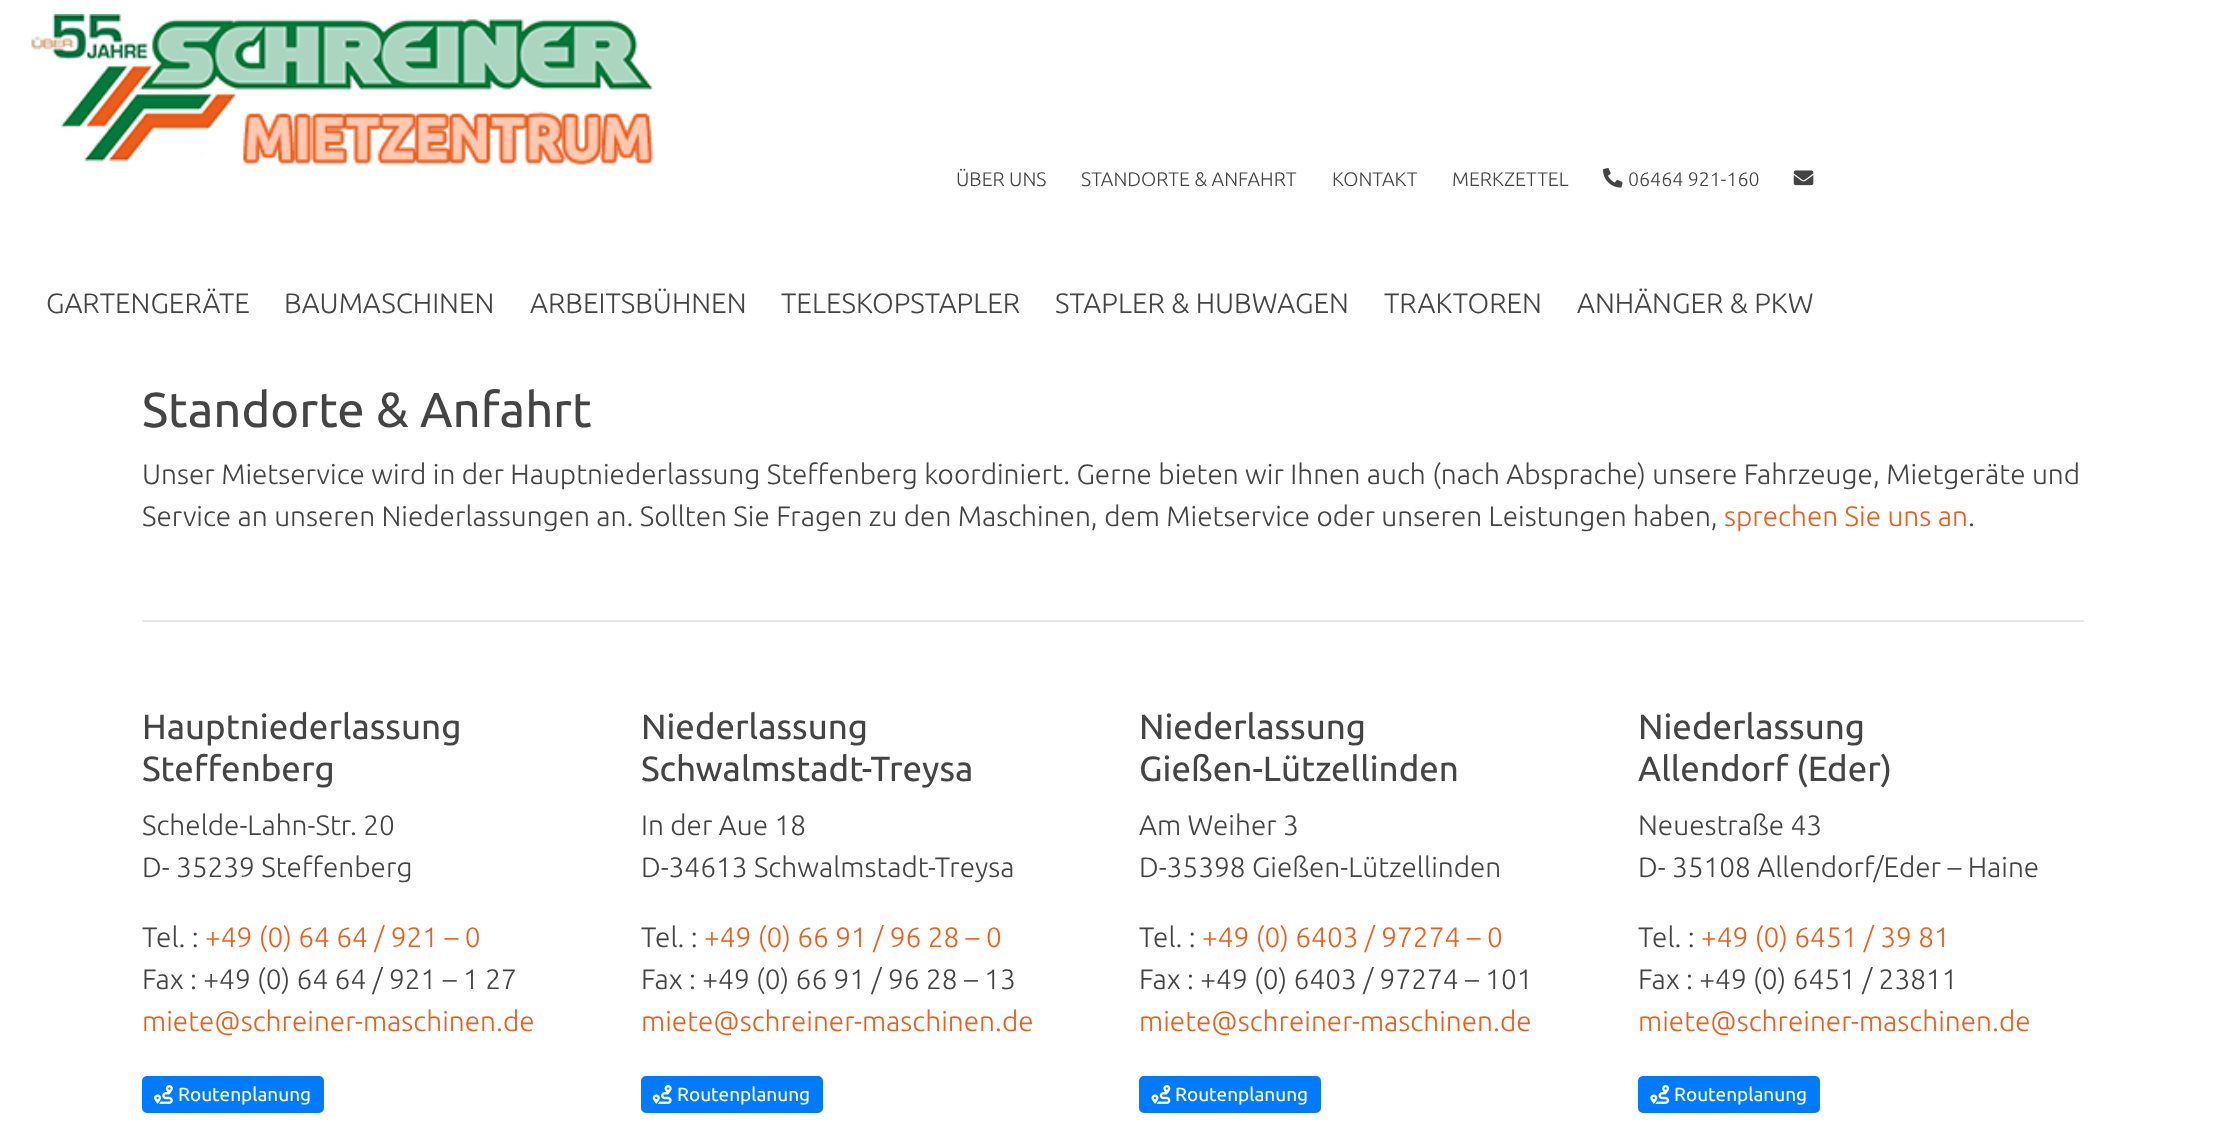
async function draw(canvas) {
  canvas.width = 2226;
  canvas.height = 1137;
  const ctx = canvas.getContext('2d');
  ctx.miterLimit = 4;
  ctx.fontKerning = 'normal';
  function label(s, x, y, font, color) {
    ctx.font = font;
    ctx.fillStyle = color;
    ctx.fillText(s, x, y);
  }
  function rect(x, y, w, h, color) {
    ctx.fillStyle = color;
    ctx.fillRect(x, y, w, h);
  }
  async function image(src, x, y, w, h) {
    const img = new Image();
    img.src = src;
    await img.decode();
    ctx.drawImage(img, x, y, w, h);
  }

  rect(0, 0, 2226, 1137, '#fff');
  await image('assets/img1.png', 31, 14, 625, 151);
  label('ÜBER UNS', 956, 186, '300 19.6px Ubuntu', '#444');
  label('STANDORTE & ANFAHRT', 1081, 186, '300 19.6px Ubuntu', '#444');
  label('KONTAKT', 1332, 186, '300 19.6px Ubuntu', '#444');
  label('MERKZETTEL', 1452, 186, '300 19.6px Ubuntu', '#444');
  await image('assets/img2.png', 1603, 168, 20, 20);
  label('06464 921-160', 1628, 186, '300 19.6px Ubuntu', '#444');
  await image('assets/img3.png', 1793, 170, 21, 16);
  label('GARTENGERÄTE', 46, 313, '300 28px Ubuntu', '#444');
  label('BAUMASCHINEN', 284, 313, '300 28px Ubuntu', '#444');
  label('ARBEITSBÜHNEN', 530, 313, '300 28px Ubuntu', '#444');
  label('TELESKOPSTAPLER', 781, 313, '300 28px Ubuntu', '#444');
  label('STAPLER & HUBWAGEN', 1055, 313, '300 28px Ubuntu', '#444');
  label('TRAKTOREN', 1384, 313, '300 28px Ubuntu', '#444');
  label('ANHÄNGER & PKW', 1577, 313, '300 28px Ubuntu', '#444');
  label('Standorte & Anfahrt', 142, 427, '49px Ubuntu', '#444');
  label('Unser Mietservice wird in der Hauptniederlassung Steffenberg koordiniert. Gerne bieten wir Ihnen auch (nach Absprache) unsere Fahrzeuge, Mietgeräte und', 142, 484, '300 28px Ubuntu', '#444');
  label('Service an unseren Niederlassungen an. Sollten Sie Fragen zu den Maschinen, dem Mietservice oder unseren Leistungen haben,', 142, 526, '300 28px Ubuntu', '#444');
  label('sprechen Sie uns an', 1724, 526, '300 28px Ubuntu', '#ec5e1c');
  label('.', 1968, 526, '300 28px Ubuntu', '#444');
  rect(142, 620, 1942, 2, '#e6e6e6');
  label('Hauptniederlassung', 142, 739, '35px Ubuntu', '#444');
  label('Steffenberg', 142, 781, '35px Ubuntu', '#444');
  label('Schelde-Lahn-Str. 20', 142, 835, '300 28px Ubuntu', '#444');
  label('D- 35239 Steffenberg', 142, 877, '300 28px Ubuntu', '#444');
  label('Tel. :', 142, 947, '300 28px Ubuntu', '#444');
  label('+49 (0) 64 64 / 921 – 0', 205, 947, '300 28px Ubuntu', '#ec5e1c');
  label('Fax : +49 (0) 64 64 / 921 – 1 27', 142, 989, '300 28px Ubuntu', '#444');
  label('miete@schreiner-maschinen.de', 142, 1031, '300 28px Ubuntu', '#ec5e1c');
  ctx.fillStyle = '#007bff';
  ctx.beginPath();
  ctx.roundRect(143, 1077, 180, 35, 4);
  ctx.fill();
  ctx.strokeStyle = '#007bff';
  ctx.lineWidth = 2;
  ctx.stroke();
  await image('assets/img4.png', 154, 1085, 19, 19);
  label('Routenplanung', 178, 1101, '19px Ubuntu', '#fff');
  label('Niederlassung', 641, 739, '35px Ubuntu', '#444');
  label('Schwalmstadt-Treysa', 641, 781, '35px Ubuntu', '#444');
  label('In der Aue 18', 641, 835, '300 28px Ubuntu', '#444');
  label('D-34613 Schwalmstadt-Treysa', 641, 877, '300 28px Ubuntu', '#444');
  label('Tel. :', 641, 947, '300 28px Ubuntu', '#444');
  label('+49 (0) 66 91 / 96 28 – 0', 704, 947, '300 28px Ubuntu', '#ec5e1c');
  label('Fax : +49 (0) 66 91 / 96 28 – 13', 641, 989, '300 28px Ubuntu', '#444');
  label('miete@schreiner-maschinen.de', 641, 1031, '300 28px Ubuntu', '#ec5e1c');
  ctx.fillStyle = '#007bff';
  ctx.beginPath();
  ctx.roundRect(642, 1077, 180, 35, 4);
  ctx.fill();
  ctx.stroke();
  await image('assets/img5.png', 652, 1085, 20, 19);
  label('Routenplanung', 677, 1101, '19px Ubuntu', '#fff');
  label('Niederlassung', 1139, 739, '35px Ubuntu', '#444');
  label('Gießen-Lützellinden', 1139, 781, '35px Ubuntu', '#444');
  label('Am Weiher 3', 1139, 835, '300 28px Ubuntu', '#444');
  label('D-35398 Gießen-Lützellinden', 1139, 877, '300 28px Ubuntu', '#444');
  label('Tel. :', 1139, 947, '300 28px Ubuntu', '#444');
  label('+49 (0) 6403 / 97274 – 0', 1202, 947, '300 28px Ubuntu', '#ec5e1c');
  label('Fax : +49 (0) 6403 / 97274 – 101', 1139, 989, '300 28px Ubuntu', '#444');
  label('miete@schreiner-maschinen.de', 1139, 1031, '300 28px Ubuntu', '#ec5e1c');
  ctx.fillStyle = '#007bff';
  ctx.beginPath();
  ctx.roundRect(1140, 1077, 180, 35, 4);
  ctx.fill();
  ctx.stroke();
  await image('assets/img6.png', 1151, 1085, 20, 19);
  label('Routenplanung', 1175, 1101, '19px Ubuntu', '#fff');
  label('Niederlassung', 1638, 739, '35px Ubuntu', '#444');
  label('Allendorf (Eder)', 1638, 781, '35px Ubuntu', '#444');
  label('Neuestraße 43', 1638, 835, '300 28px Ubuntu', '#444');
  label('D- 35108 Allendorf/Eder – Haine', 1638, 877, '300 28px Ubuntu', '#444');
  label('Tel. :', 1638, 947, '300 28px Ubuntu', '#444');
  label('+49 (0) 6451 / 39 81', 1701, 947, '300 28px Ubuntu', '#ec5e1c');
  label('Fax : +49 (0) 6451 / 23811', 1638, 989, '300 28px Ubuntu', '#444');
  label('miete@schreiner-maschinen.de', 1638, 1031, '300 28px Ubuntu', '#ec5e1c');
  ctx.fillStyle = '#007bff';
  ctx.beginPath();
  ctx.roundRect(1639, 1077, 180, 35, 4);
  ctx.fill();
  ctx.stroke();
  await image('assets/img7.png', 1650, 1085, 20, 19);
  label('Routenplanung', 1674, 1101, '19px Ubuntu', '#fff');
}

draw(document.querySelector('canvas'));
